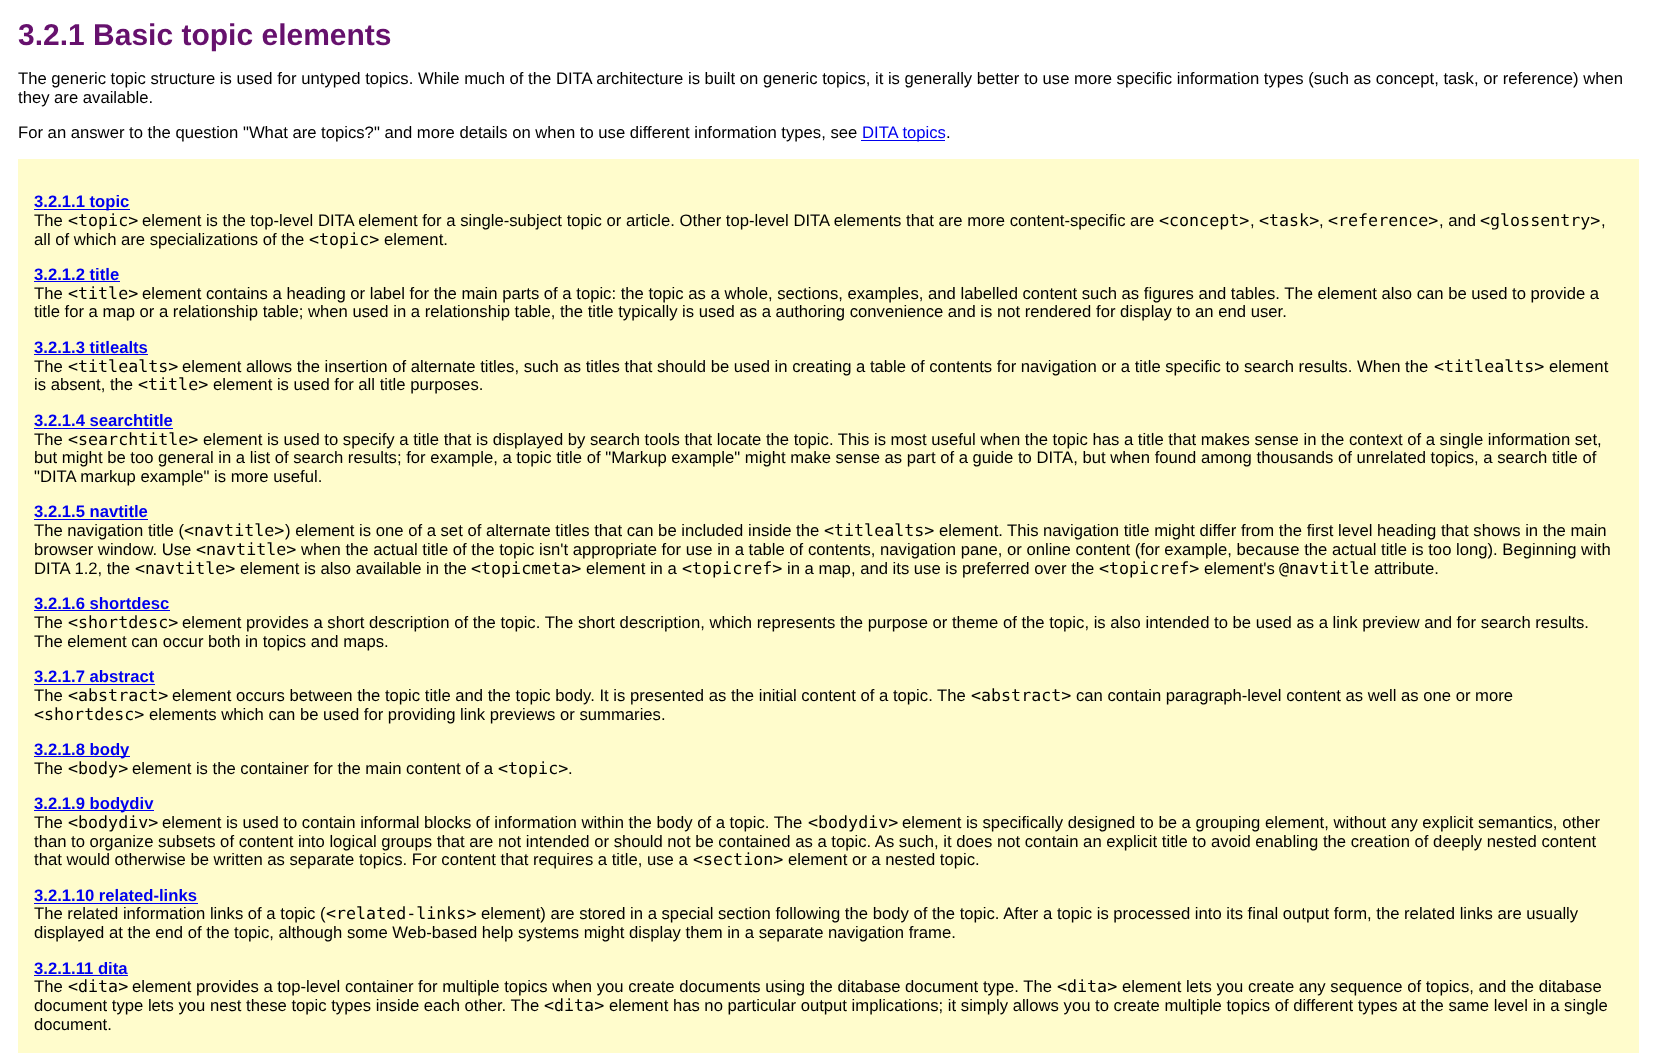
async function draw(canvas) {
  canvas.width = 1656;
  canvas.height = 1053;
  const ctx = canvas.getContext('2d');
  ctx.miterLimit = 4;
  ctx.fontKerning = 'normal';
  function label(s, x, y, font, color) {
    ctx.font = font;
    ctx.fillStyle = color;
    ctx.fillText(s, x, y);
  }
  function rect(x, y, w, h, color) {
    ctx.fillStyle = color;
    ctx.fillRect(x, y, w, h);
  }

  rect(0, 0, 1656, 1053, '#fff');
  label('3.2.1 Basic topic elements', 18, 45, 'bold 30px Liberation Sans', '#66116d');
  label('The generic topic structure is used for untyped topics. While much of the DITA architecture is built on generic topics, it is generally better to use more specific information types (such as concept, task, or reference) when', 18, 84, '16.67px Liberation Sans', '#000');
  label('they are available.', 18, 103, '16.67px Liberation Sans', '#000');
  label('For an answer to the question "What are topics?" and more details on when to use different information types, see', 18, 138, '16.67px Liberation Sans', '#000');
  rect(861, 140, 84, 1, '#00e');
  label('DITA topics', 862, 138, '16.67px Liberation Sans', '#00e');
  label('.', 946, 138, '16.67px Liberation Sans', '#000');
  rect(18, 159, 1621, 894, '#fffccc');
  rect(34, 209, 96, 1, '#00e');
  label('3.2.1.1 topic', 34, 207, 'bold 16.67px Liberation Sans', '#00e');
  label('The', 34, 226, '16.67px Liberation Sans', '#000');
  label('<topic>', 68, 226, '16.67px DejaVu Sans Mono', '#000');
  label('element is the top-level DITA element for a single-subject topic or article. Other top-level DITA elements that are more content-specific are', 142, 226, '16.67px Liberation Sans', '#000');
  label('<concept>', 1159, 226, '16.67px DejaVu Sans Mono', '#000');
  label(',', 1250, 226, '16.67px Liberation Sans', '#000');
  label('<task>', 1259, 226, '16.67px DejaVu Sans Mono', '#000');
  label(',', 1319, 226, '16.67px Liberation Sans', '#000');
  label('<reference>', 1328, 226, '16.67px DejaVu Sans Mono', '#000');
  label(', and', 1439, 226, '16.67px Liberation Sans', '#000');
  label('<glossentry>', 1480, 226, '16.67px DejaVu Sans Mono', '#000');
  label(',', 1601, 226, '16.67px Liberation Sans', '#000');
  label('all of which are specializations of the', 34, 245, '16.67px Liberation Sans', '#000');
  label('<topic>', 309, 245, '16.67px DejaVu Sans Mono', '#000');
  label('element.', 384, 245, '16.67px Liberation Sans', '#000');
  label('3.2.1.2 title', 34, 280, 'bold 16.67px Liberation Sans', '#00e');
  rect(34, 281, 86, 1, '#00e');
  label('The', 34, 299, '16.67px Liberation Sans', '#000');
  label('<title>', 68, 299, '16.67px DejaVu Sans Mono', '#000');
  label('element contains a heading or label for the main parts of a topic: the topic as a whole, sections, examples, and labelled content such as figures and tables. The element also can be used to provide a', 142, 299, '16.67px Liberation Sans', '#000');
  label('title for a map or a relationship table; when used in a relationship table, the title typically is used as a authoring convenience and is not rendered for display to an end user.', 34, 317, '16.67px Liberation Sans', '#000');
  label('3.2.1.3 titlealts', 34, 353, 'bold 16.67px Liberation Sans', '#00e');
  rect(34, 354, 114, 1, '#00e');
  label('The', 34, 372, '16.67px Liberation Sans', '#000');
  label('<titlealts>', 68, 372, '16.67px DejaVu Sans Mono', '#000');
  label('element allows the insertion of alternate titles, such as titles that should be used in creating a table of contents for navigation or a title specific to search results. When the', 182, 372, '16.67px Liberation Sans', '#000');
  label('<titlealts>', 1434, 372, '16.67px DejaVu Sans Mono', '#000');
  label('element', 1549, 372, '16.67px Liberation Sans', '#000');
  label('is absent, the', 34, 390, '16.67px Liberation Sans', '#000');
  label('<title>', 138, 390, '16.67px DejaVu Sans Mono', '#000');
  label('element is used for all title purposes.', 213, 390, '16.67px Liberation Sans', '#000');
  label('3.2.1.4 searchtitle', 34, 426, 'bold 16.67px Liberation Sans', '#00e');
  rect(34, 428, 139, 1, '#00e');
  label('The', 34, 445, '16.67px Liberation Sans', '#000');
  label('<searchtitle>', 68, 445, '16.67px DejaVu Sans Mono', '#000');
  label('element is used to specify a title that is displayed by search tools that locate the topic. This is most useful when the topic has a title that makes sense in the context of a single information set,', 203, 445, '16.67px Liberation Sans', '#000');
  label('but might be too general in a list of search results; for example, a topic title of "Markup example" might make sense as part of a guide to DITA, but when found among thousands of unrelated topics, a search title of', 34, 463, '16.67px Liberation Sans', '#000');
  label('"DITA markup example" is more useful.', 34, 482, '16.67px Liberation Sans', '#000');
  label('3.2.1.5 navtitle', 34, 517, 'bold 16.67px Liberation Sans', '#00e');
  rect(34, 519, 114, 1, '#00e');
  label('The navigation title (', 34, 536, '16.67px Liberation Sans', '#000');
  label('<navtitle>', 184, 536, '16.67px DejaVu Sans Mono', '#000');
  label(') element is one of a set of alternate titles that can be included inside the', 285, 536, '16.67px Liberation Sans', '#000');
  label('<titlealts>', 824, 536, '16.67px DejaVu Sans Mono', '#000');
  label('element.', 939, 536, '16.67px Liberation Sans', '#000');
  label('This navigation title might differ from the first level heading that shows in the main', 1007, 536, '16.67px Liberation Sans', '#000');
  label('browser window. Use', 34, 555, '16.67px Liberation Sans', '#000');
  label('<navtitle>', 196, 555, '16.67px DejaVu Sans Mono', '#000');
  label('when the actual title of the topic isn\'t appropriate for use in a table of contents, navigation pane, or online content (for example, because the actual title is too long). Beginning with', 301, 555, '16.67px Liberation Sans', '#000');
  label('DITA 1.2, the', 34, 574, '16.67px Liberation Sans', '#000');
  label('<navtitle>', 135, 574, '16.67px DejaVu Sans Mono', '#000');
  label('element is also available in the', 240, 574, '16.67px Liberation Sans', '#000');
  label('<topicmeta>', 471, 574, '16.67px DejaVu Sans Mono', '#000');
  label('element in a', 586, 574, '16.67px Liberation Sans', '#000');
  label('<topicref>', 682, 574, '16.67px DejaVu Sans Mono', '#000');
  label('in a map, and its use is preferred over the', 787, 574, '16.67px Liberation Sans', '#000');
  label('<topicref>', 1099, 574, '16.67px DejaVu Sans Mono', '#000');
  label('element\'s', 1204, 574, '16.67px Liberation Sans', '#000');
  label('@navtitle', 1279, 574, '16.67px DejaVu Sans Mono', '#000');
  label('attribute.', 1374, 574, '16.67px Liberation Sans', '#000');
  label('3.2.1.6 shortdesc', 34, 609, 'bold 16.67px Liberation Sans', '#00e');
  rect(34, 610, 136, 1, '#00e');
  label('The', 34, 628, '16.67px Liberation Sans', '#000');
  label('<shortdesc>', 68, 628, '16.67px DejaVu Sans Mono', '#000');
  label('element provides a short description of the topic. The short description, which represents the purpose or theme of the topic, is also intended to be used as a link preview and for search results.', 182, 628, '16.67px Liberation Sans', '#000');
  label('The element can occur both in topics and maps.', 34, 647, '16.67px Liberation Sans', '#000');
  label('3.2.1.7 abstract', 34, 682, 'bold 16.67px Liberation Sans', '#00e');
  rect(34, 684, 121, 1, '#00e');
  label('The', 34, 701, '16.67px Liberation Sans', '#000');
  label('<abstract>', 68, 701, '16.67px DejaVu Sans Mono', '#000');
  label('element occurs between the topic title and the topic body. It is presented as the initial content of a topic. The', 172, 701, '16.67px Liberation Sans', '#000');
  label('<abstract>', 971, 701, '16.67px DejaVu Sans Mono', '#000');
  label('can contain paragraph-level content as well as one or more', 1076, 701, '16.67px Liberation Sans', '#000');
  label('<shortdesc>', 34, 720, '16.67px DejaVu Sans Mono', '#000');
  label('elements which can be used for providing link previews or summaries.', 149, 720, '16.67px Liberation Sans', '#000');
  rect(34, 756, 96, 1, '#00e');
  label('3.2.1.8 body', 34, 755, 'bold 16.67px Liberation Sans', '#00e');
  label('The', 34, 774, '16.67px Liberation Sans', '#000');
  label('<body>', 68, 774, '16.67px DejaVu Sans Mono', '#000');
  label('element is the container for the main content of a', 132, 774, '16.67px Liberation Sans', '#000');
  label('<topic>', 498, 774, '16.67px DejaVu Sans Mono', '#000');
  label('.', 568, 774, '16.67px Liberation Sans', '#000');
  rect(34, 810, 120, 1, '#00e');
  label('3.2.1.9 bodydiv', 34, 809, 'bold 16.67px Liberation Sans', '#00e');
  label('The', 34, 828, '16.67px Liberation Sans', '#000');
  label('<bodydiv>', 68, 828, '16.67px DejaVu Sans Mono', '#000');
  label('element is used to contain informal blocks of information within the body of a topic. The', 162, 828, '16.67px Liberation Sans', '#000');
  label('<bodydiv>', 808, 828, '16.67px DejaVu Sans Mono', '#000');
  label('element is specifically designed to be a grouping element, without any explicit semantics, other', 902, 828, '16.67px Liberation Sans', '#000');
  label('than to organize subsets of content into logical groups that are not intended or should not be contained as a topic. As such, it does not contain an explicit title to avoid enabling the creation of deeply nested content', 34, 847, '16.67px Liberation Sans', '#000');
  label('that would otherwise be written as separate topics. For content that requires a title, use a', 34, 865, '16.67px Liberation Sans', '#000');
  label('<section>', 693, 865, '16.67px DejaVu Sans Mono', '#000');
  label('element or a nested topic.', 788, 865, '16.67px Liberation Sans', '#000');
  label('3.2.1.10 related-links', 34, 901, 'bold 16.67px Liberation Sans', '#00e');
  rect(34, 903, 164, 1, '#00e');
  label('The related information links of a topic (', 34, 919, '16.67px Liberation Sans', '#000');
  label('<related-links>', 326, 919, '16.67px DejaVu Sans Mono', '#000');
  label('element) are stored in a special section following the body of the topic. After a topic is processed into its final output form, the related links are usually', 481, 919, '16.67px Liberation Sans', '#000');
  label('displayed at the end of the topic, although some Web-based help systems might display them in a separate navigation frame.', 34, 938, '16.67px Liberation Sans', '#000');
  label('3.2.1.11 dita', 34, 974, 'bold 16.67px Liberation Sans', '#00e');
  rect(34, 975, 94, 1, '#00e');
  label('The', 34, 992, '16.67px Liberation Sans', '#000');
  label('<dita>', 68, 992, '16.67px DejaVu Sans Mono', '#000');
  label('element provides a top-level container for multiple topics when you create documents using the ditabase document type. The', 132, 992, '16.67px Liberation Sans', '#000');
  label('<dita>', 1057, 992, '16.67px DejaVu Sans Mono', '#000');
  label('element lets you create any sequence of topics, and the ditabase', 1122, 992, '16.67px Liberation Sans', '#000');
  label('document type lets you nest these topic types inside each other. The', 34, 1011, '16.67px Liberation Sans', '#000');
  label('<dita>', 544, 1011, '16.67px DejaVu Sans Mono', '#000');
  label('element has no particular output implications; it simply allows you to create multiple topics of different types at the same level in a single', 609, 1011, '16.67px Liberation Sans', '#000');
  label('document.', 34, 1030, '16.67px Liberation Sans', '#000');
}

draw(document.querySelector('canvas'));
